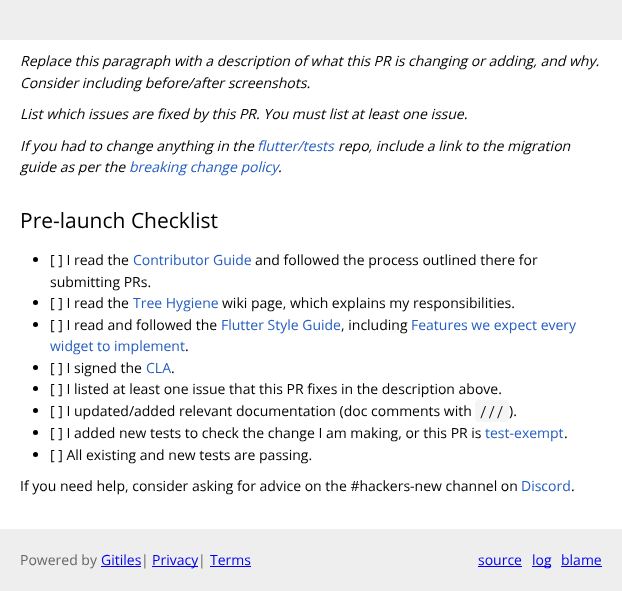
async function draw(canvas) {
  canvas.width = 622;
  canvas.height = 591;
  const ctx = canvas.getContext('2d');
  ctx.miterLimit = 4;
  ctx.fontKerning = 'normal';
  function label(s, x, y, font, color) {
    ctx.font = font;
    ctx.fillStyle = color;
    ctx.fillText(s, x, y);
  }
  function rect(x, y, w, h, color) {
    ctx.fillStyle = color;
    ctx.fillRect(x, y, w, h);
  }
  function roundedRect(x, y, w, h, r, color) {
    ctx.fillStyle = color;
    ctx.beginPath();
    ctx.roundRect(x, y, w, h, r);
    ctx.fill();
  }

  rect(0, 0, 622, 591, '#fff');
  rect(0, 0, 622, 40, '#eee');
  label('Replace this paragraph with a description of what this PR is changing or adding, and why.', 20, 66, 'italic 14px Open Sans', '#000');
  label('Consider including before/after screenshots.', 20, 88, 'italic 14px Open Sans', '#000');
  label('List which issues are fixed by this PR. You must list at least one issue.', 20, 119, 'italic 14px Open Sans', '#000');
  label('If you had to change anything in the', 20, 151, 'italic 14px Open Sans', '#000');
  label('flutter/tests', 257, 151, 'italic 14px Open Sans', '#245dc1');
  label('repo, include a link to the migration', 338, 151, 'italic 14px Open Sans', '#000');
  label('guide as per the', 20, 172, 'italic 14px Open Sans', '#000');
  label('breaking change policy', 129, 172, 'italic 14px Open Sans', '#245dc1');
  label('.', 278, 172, 'italic 14px Open Sans', '#000');
  label('Pre-launch Checklist', 20, 228, '21px Open Sans', '#000');
  ctx.beginPath();
  ctx.arc(35.5, 259.5, 2.5, 0, 2 * Math.PI);
  ctx.fill();
  label('[ ] I read the', 50, 265, '14px Open Sans', '#000');
  label('Contributor Guide', 133, 265, '14px Open Sans', '#245dc1');
  label('and followed the process outlined there for', 255, 265, '14px Open Sans', '#000');
  label('submitting PRs.', 50, 287, '14px Open Sans', '#000');
  ctx.beginPath();
  ctx.arc(35.5, 302.5, 2.5, 0, 2 * Math.PI);
  ctx.fill();
  label('[ ] I read the', 50, 308, '14px Open Sans', '#000');
  label('Tree Hygiene', 133, 308, '14px Open Sans', '#245dc1');
  label('wiki page, which explains my responsibilities.', 222, 308, '14px Open Sans', '#000');
  ctx.beginPath();
  ctx.arc(35.5, 324.5, 2.5, 0, 2 * Math.PI);
  ctx.fill();
  label('[ ] I read and followed the', 50, 330, '14px Open Sans', '#000');
  label('Flutter Style Guide', 221, 330, '14px Open Sans', '#245dc1');
  label(', including', 341, 330, '14px Open Sans', '#000');
  label('Features we expect every', 411, 330, '14px Open Sans', '#245dc1');
  label('widget to implement', 50, 351, '14px Open Sans', '#245dc1');
  label('.', 185, 351, '14px Open Sans', '#000');
  ctx.beginPath();
  ctx.arc(35.5, 367.5, 2.5, 0, 2 * Math.PI);
  ctx.fill();
  label('[ ] I signed the', 50, 373, '14px Open Sans', '#000');
  label('CLA', 146, 373, '14px Open Sans', '#245dc1');
  label('.', 171, 373, '14px Open Sans', '#000');
  ctx.beginPath();
  ctx.arc(35.5, 388.5, 2.5, 0, 2 * Math.PI);
  ctx.fill();
  label('[ ] I listed at least one issue that this PR fixes in the description above.', 50, 394, '14px Open Sans', '#000');
  ctx.beginPath();
  ctx.arc(35.5, 410.5, 2.5, 0, 2 * Math.PI);
  ctx.fill();
  label('[ ] I updated/added relevant documentation (doc comments with', 50, 416, '14px Open Sans', '#000');
  roundedRect(475, 400, 34, 22, 4, '#f5f5f5');
  label('///', 479, 416, '200 14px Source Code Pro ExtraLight', '#000');
  label(').', 509, 416, '14px Open Sans', '#000');
  ctx.beginPath();
  ctx.arc(35.5, 432.5, 2.5, 0, 2 * Math.PI);
  ctx.fill();
  label('[ ] I added new tests to check the change I am making, or this PR is', 50, 438, '14px Open Sans', '#000');
  label('test-exempt', 485, 438, '14px Open Sans', '#245dc1');
  label('.', 564, 438, '14px Open Sans', '#000');
  ctx.beginPath();
  ctx.arc(35.5, 454.5, 2.5, 0, 2 * Math.PI);
  ctx.fill();
  label('[ ] All existing and new tests are passing.', 50, 460, '14px Open Sans', '#000');
  label('If you need help, consider asking for advice on the #hackers-new channel on', 20, 491, '14px Open Sans', '#000');
  label('Discord', 521, 491, '14px Open Sans', '#245dc1');
  label('.', 571, 491, '14px Open Sans', '#000');
  rect(0, 529, 622, 62, '#eee');
  label('Powered by', 20, 565, '14px Open Sans', '#666');
  label('Gitiles', 101, 565, '14px Open Sans', '#00e');
  rect(101, 566, 40, 1, '#00e');
  label('|', 141, 565, '14px Open Sans', '#666');
  rect(152, 566, 46, 1, '#00e');
  label('Privacy', 152, 565, '14px Open Sans', '#00e');
  label('|', 198, 565, '14px Open Sans', '#666');
  label('Terms', 210, 565, '14px Open Sans', '#00e');
  rect(210, 566, 41, 1, '#00e');
  label('source', 478, 565, '14px Open Sans', '#00e');
  rect(478, 566, 44, 1, '#00e');
  rect(532, 566, 19, 1, '#00e');
  label('log', 532, 565, '14px Open Sans', '#00e');
  label('blame', 561, 565, '14px Open Sans', '#00e');
  rect(561, 566, 41, 1, '#00e');
}

draw(document.querySelector('canvas'));
